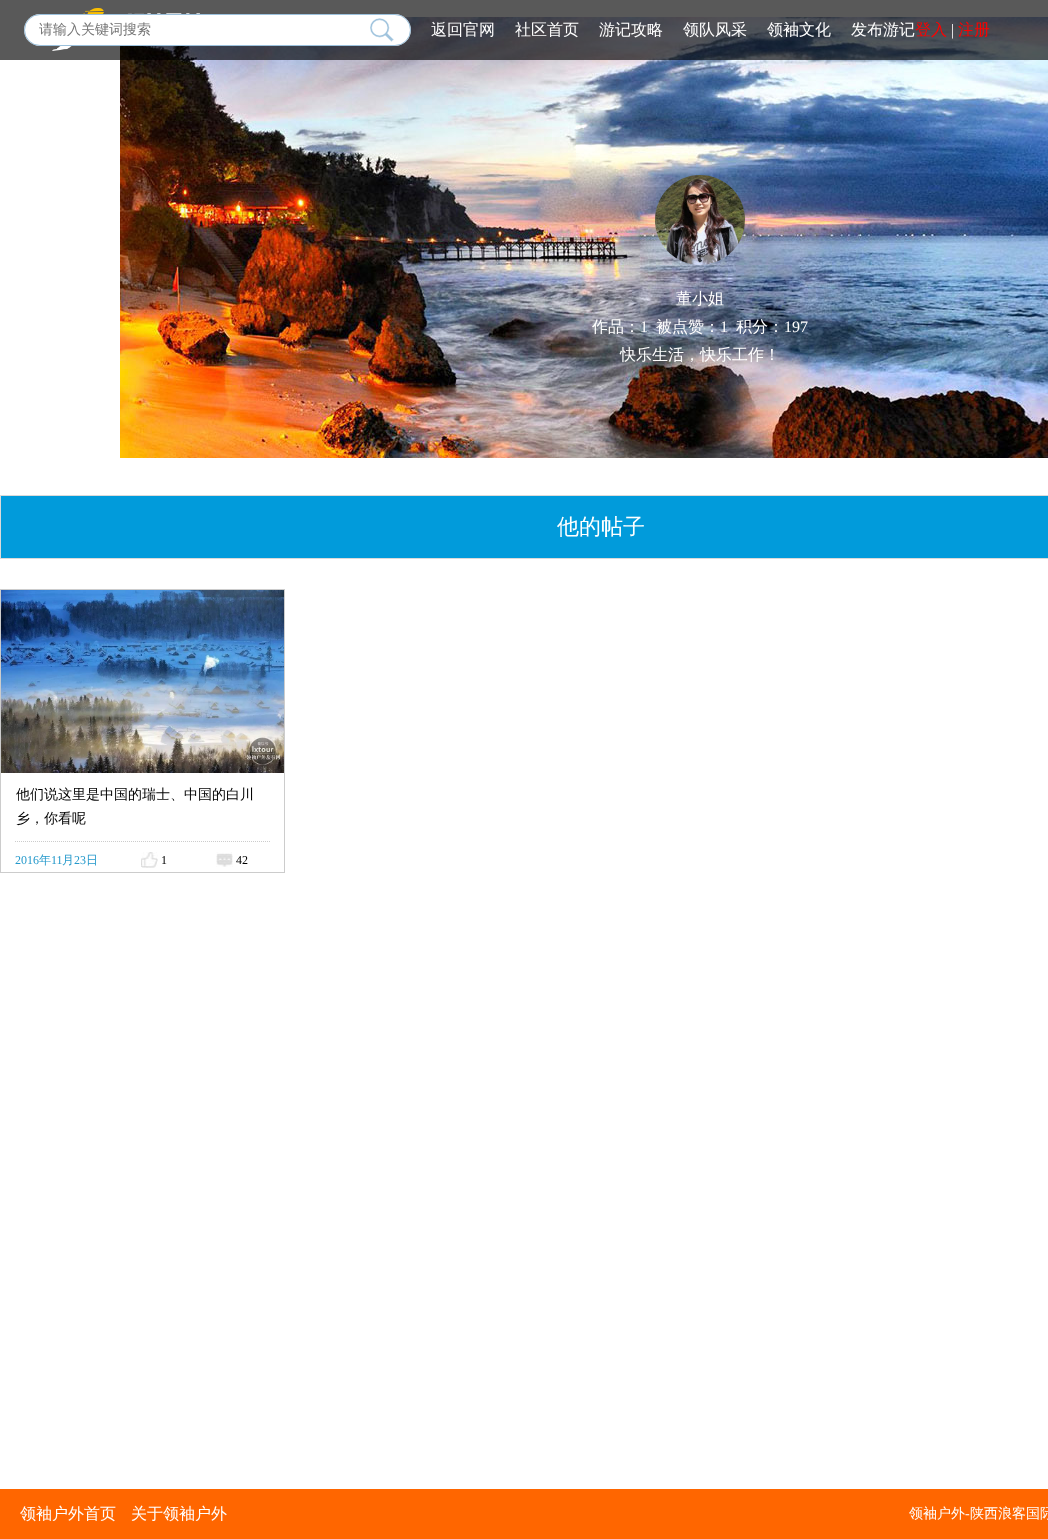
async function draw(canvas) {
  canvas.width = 1048;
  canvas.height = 1539;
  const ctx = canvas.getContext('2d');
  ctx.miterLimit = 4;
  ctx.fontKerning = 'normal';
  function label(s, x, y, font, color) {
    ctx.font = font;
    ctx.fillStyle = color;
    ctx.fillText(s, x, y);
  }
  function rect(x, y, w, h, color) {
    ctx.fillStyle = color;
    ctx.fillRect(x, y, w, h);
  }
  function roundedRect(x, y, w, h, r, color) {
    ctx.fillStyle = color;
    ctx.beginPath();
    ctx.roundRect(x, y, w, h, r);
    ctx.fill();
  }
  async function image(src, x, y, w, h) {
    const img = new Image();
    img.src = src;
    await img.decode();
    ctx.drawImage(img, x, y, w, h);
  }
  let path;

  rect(0, 0, 1048, 1539, '#fff');
  await image('assets/img3.png', 120, 17, 928, 441);
  rect(0, 0, 1048, 60, '#000000a6');
  await image('assets/img1.png', 52, 8, 148, 43);
  roundedRect(24, 14, 387, 32, 16, '#fff');
  ctx.beginPath();
  ctx.roundRect(24.5, 14.5, 386, 31, 15.5);
  ctx.strokeStyle = '#0864a766';
  ctx.stroke();
  label('请输入关键词搜索', 39, 34, '500 14px WenQuanYi Zen Hei', '#757575');
  await image('assets/img2.png', 370, 18, 24, 24);
  label('返回官网', 431, 35, '500 16px WenQuanYi Zen Hei', '#fff');
  label('社区首页', 515, 35, '500 16px WenQuanYi Zen Hei', '#fff');
  label('游记攻略', 599, 35, '500 16px WenQuanYi Zen Hei', '#fff');
  label('领队风采', 683, 35, '500 16px WenQuanYi Zen Hei', '#fff');
  label('领袖文化', 767, 35, '500 16px WenQuanYi Zen Hei', '#fff');
  label('发布游记', 851, 35, '500 16px WenQuanYi Zen Hei', '#fff');
  label('登入', 915, 35, '500 16px WenQuanYi Zen Hei', '#fe0000');
  label('|', 951, 35, '16px Liberation Serif', '#fff');
  label('注册', 958, 35, '500 16px WenQuanYi Zen Hei', '#fe0000');
  await image('assets/img4.png', 655, 175, 90, 90);
  label('董小姐', 676, 304, '500 16px WenQuanYi Zen Hei', '#fff');
  label('作品：', 592, 332, '500 16px WenQuanYi Zen Hei', '#fff');
  label('1', 640, 332, '16px Liberation Serif', '#fff');
  label('被点赞：', 656, 332, '500 16px WenQuanYi Zen Hei', '#fff');
  label('1', 720, 332, '16px Liberation Serif', '#fff');
  label('积分：', 736, 332, '500 16px WenQuanYi Zen Hei', '#fff');
  label('197', 784, 332, '16px Liberation Serif', '#fff');
  label('快乐生活，快乐工作！', 620, 360, '500 16px WenQuanYi Zen Hei', '#fff');
  rect(0, 495, 1048, 1, '#dadada');
  rect(0, 558, 1048, 1, '#dadada');
  rect(0, 495, 1, 64, '#dadada');
  rect(1, 496, 1047, 62, '#019bdb');
  label('他的帖子', 557, 534, '500 22px WenQuanYi Zen Hei', '#fff');
  ctx.strokeStyle = '#ccc';
  ctx.strokeRect(0.5, 589.5, 284, 283);
  await image('assets/img5.png', 1, 590, 283, 183);
  label('他们说这里是中国的瑞士、中国的白川', 16, 799, '500 14px WenQuanYi Zen Hei', '#000');
  label('乡，你看呢', 16, 823, '500 14px WenQuanYi Zen Hei', '#000');
  path = new Path2D('M15 841.5H271');
  ctx.setLineDash([1, 1]);
  ctx.stroke(path);
  label('2016', 15, 864, '12px Liberation Serif', '#2599cb');
  label('年', 39, 864, '500 12px WenQuanYi Zen Hei', '#2599cb');
  label('11', 51, 864, '12px Liberation Serif', '#2599cb');
  label('月', 62, 864, '500 12px WenQuanYi Zen Hei', '#2599cb');
  label('23', 74, 864, '12px Liberation Serif', '#2599cb');
  label('日', 86, 864, '500 12px WenQuanYi Zen Hei', '#2599cb');
  await image('assets/img6.png', 141, 852, 17, 16);
  label('1', 161, 864, '12px Liberation Serif', '#000');
  await image('assets/img7.png', 216, 852, 17, 15);
  label('42', 236, 864, '12px Liberation Serif', '#000');
  rect(0, 1489, 1048, 50, '#f60');
  label('领袖户外首页', 20, 1519, '500 16px WenQuanYi Zen Hei', '#fff');
  label('关于领袖户外', 131, 1519, '500 16px WenQuanYi Zen Hei', '#fff');
  label('领袖户外', 909, 1518, '500 14px WenQuanYi Zen Hei', '#fff');
  label('-', 965, 1518, '14px Liberation Serif', '#fff');
  label('陕西浪客国际', 970, 1518, '500 14px WenQuanYi Zen Hei', '#fff');
}

draw(document.querySelector('canvas'));
